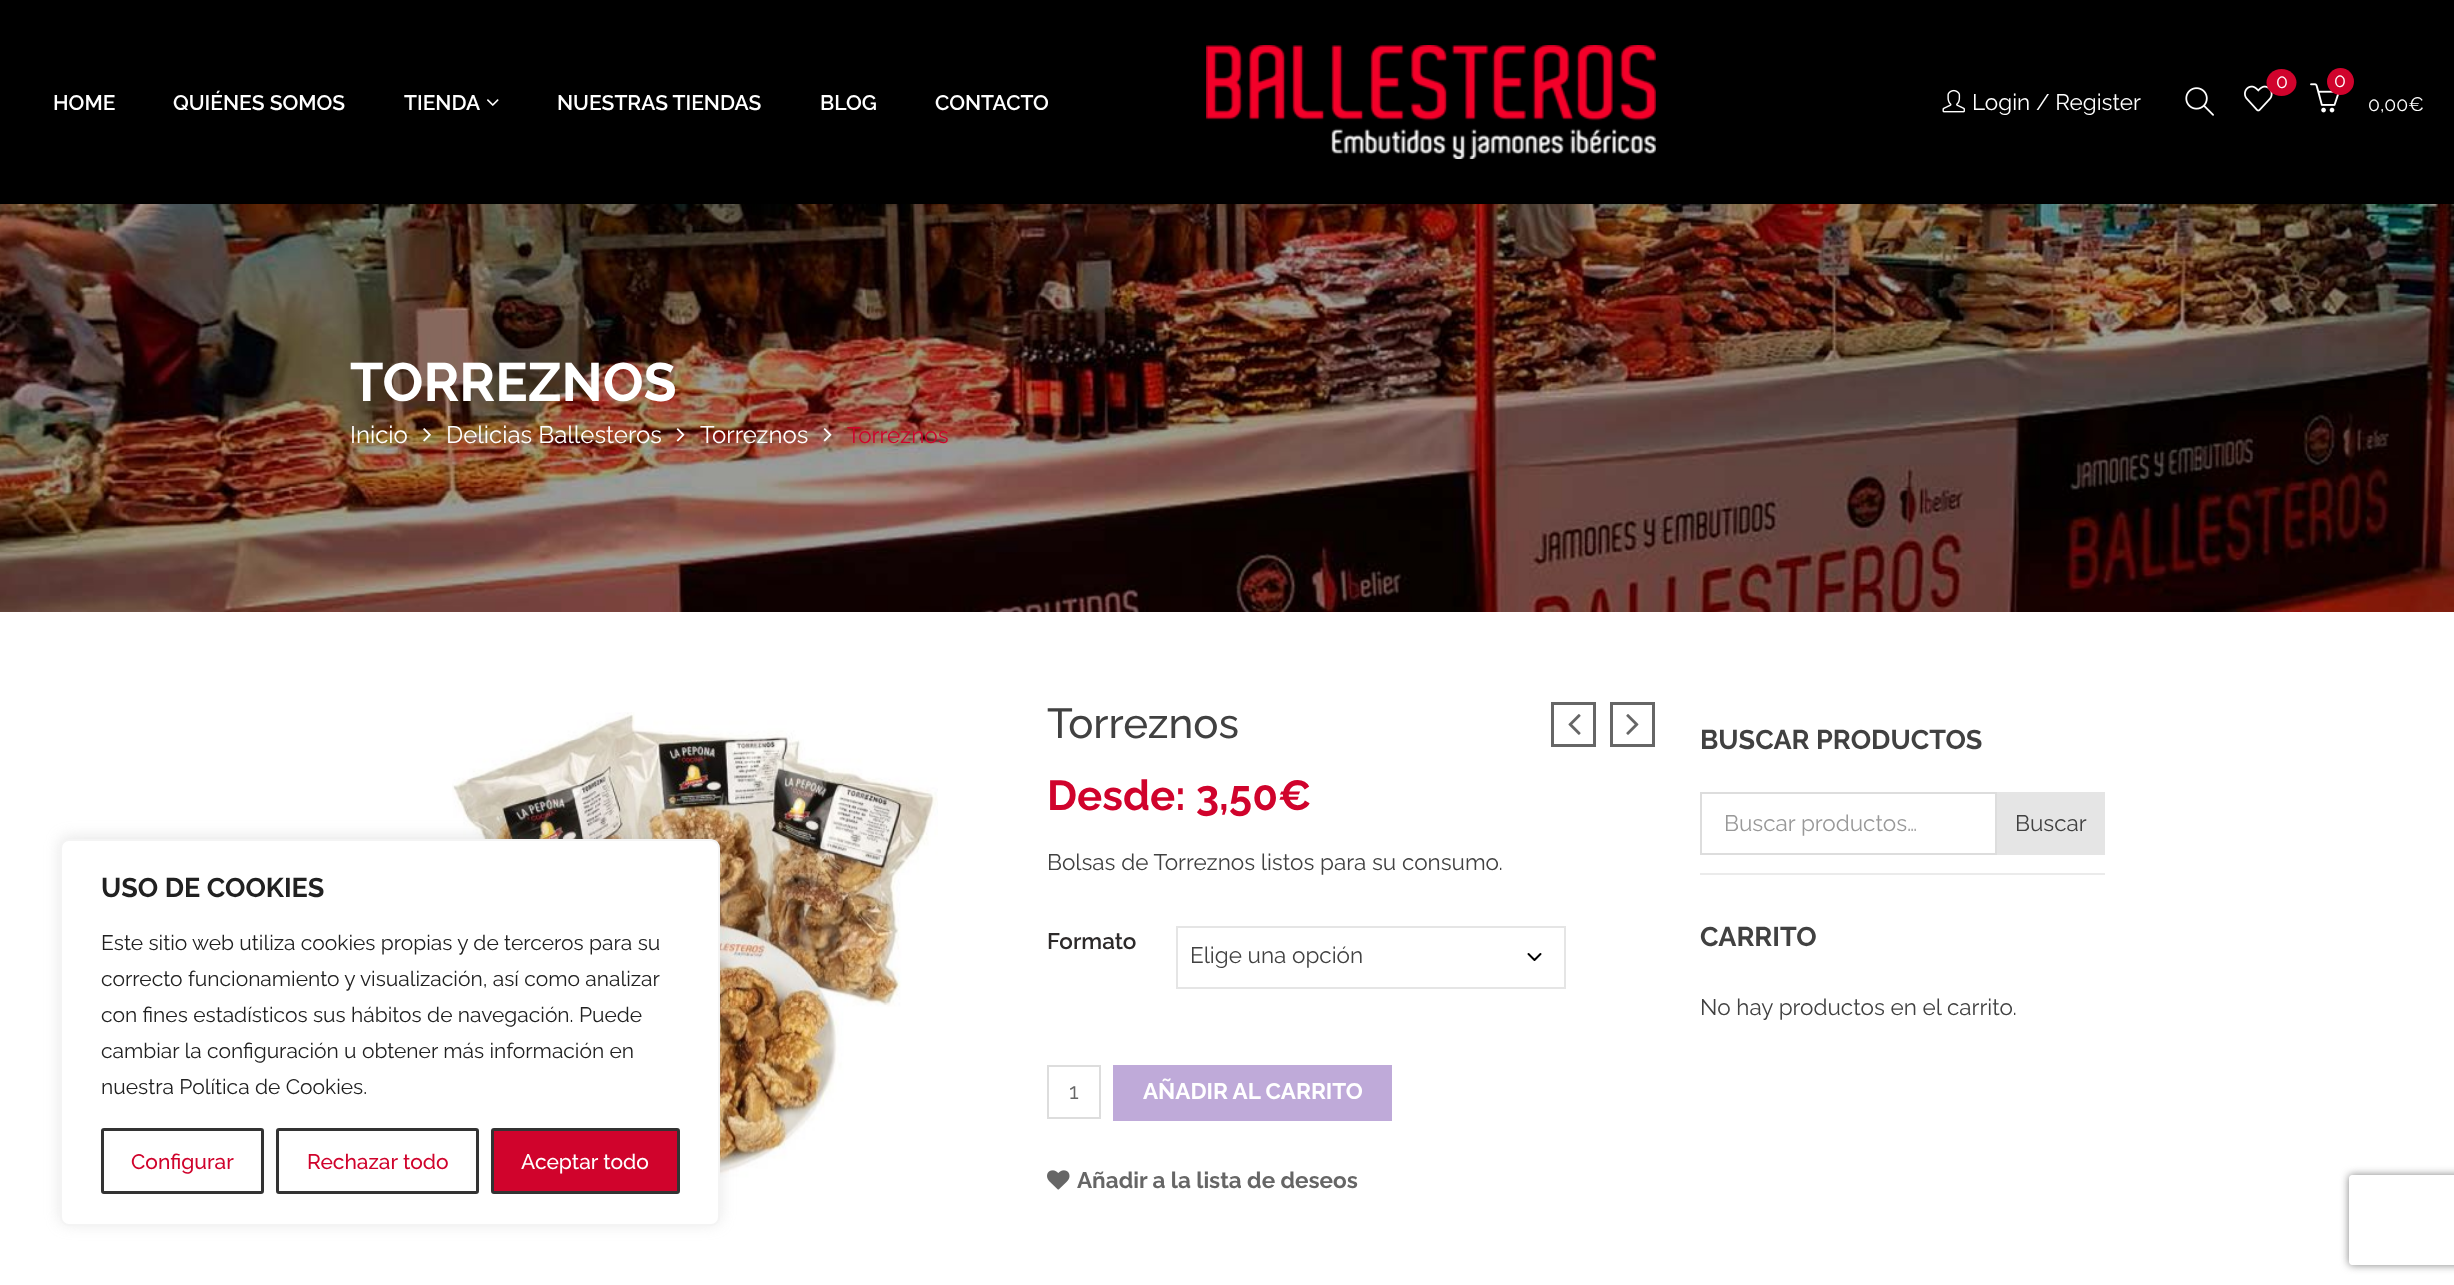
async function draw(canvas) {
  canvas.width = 2454;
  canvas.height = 1285;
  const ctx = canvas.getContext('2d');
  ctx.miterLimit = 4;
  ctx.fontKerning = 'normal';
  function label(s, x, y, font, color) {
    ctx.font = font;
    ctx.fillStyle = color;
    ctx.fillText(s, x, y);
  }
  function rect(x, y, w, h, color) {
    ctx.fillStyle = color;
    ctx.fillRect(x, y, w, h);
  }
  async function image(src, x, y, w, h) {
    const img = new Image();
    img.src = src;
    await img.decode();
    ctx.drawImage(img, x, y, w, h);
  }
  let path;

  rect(0, 0, 2454, 1285, '#fff');
  rect(0, 0, 2454, 204, '#000');
  label('HOME', 53, 110, '600 21px Raleway', '#fff');
  label('QUIÉNES SOMOS', 173, 110, '600 21px Raleway', '#fff');
  label('TIENDA', 404, 110, '600 21px Raleway', '#fff');
  await image('assets/img1.png', 487, 99, 12, 7);
  label('NUESTRAS TIENDAS', 557, 110, '600 21px Raleway', '#fff');
  label('BLOG', 820, 110, '600 21px Raleway', '#fff');
  label('CONTACTO', 935, 110, '600 21px Raleway', '#fff');
  await image('assets/img2.png', 1206, 45, 450, 114);
  await image('assets/img3.png', 1942, 89, 23, 24);
  label('Login / Register', 1972, 110, '22.5px Raleway', '#fff');
  await image('assets/img4.png', 2244, 85, 29, 27);
  ctx.fillStyle = '#d0032c';
  ctx.beginPath();
  ctx.ellipse(2281.5, 82.5, 15, 13.5, 0, 0, 2 * Math.PI);
  ctx.fill();
  label('0', 2276, 88, '19.5px Raleway', '#fff');
  await image('assets/img5.png', 2310, 83, 30, 30);
  ctx.fillStyle = '#d0032c';
  ctx.beginPath();
  ctx.arc(2340.5, 81.5, 13.5, 0, 2 * Math.PI);
  ctx.fill();
  label('0', 2334, 87, '19.5px Raleway', '#fff');
  label('0,00€', 2368, 111, '19.5px Raleway', '#fff');
  await image('assets/img6.png', 2185, 87, 29, 29);
  await image('assets/img7.png', 0, 204, 2454, 408);
  label('TORREZNOS', 350, 401, 'bold 54px Raleway', '#fff');
  label('Inicio', 350, 443, '24px Raleway', '#fff');
  await image('assets/img8.png', 423, 428, 8, 14);
  label('Delicias Ballesteros', 446, 443, '24px Raleway', '#fff');
  await image('assets/img9.png', 676, 428, 9, 14);
  label('Torreznos', 700, 443, '24px Raleway', '#fff');
  await image('assets/img10.png', 823, 428, 9, 14);
  label('Torreznos', 847, 443, '22.5px Raleway', '#d0032c');
  await image('assets/img11.png', 452, 712, 486, 470);
  label('Torreznos', 1047, 738, '500 42px Raleway', '#414141');
  ctx.strokeStyle = '#666';
  ctx.lineWidth = 3;
  ctx.strokeRect(1552.5, 703.5, 42, 42);
  await image('assets/img12.png', 1568, 714, 13, 21);
  ctx.strokeRect(1611.5, 703.5, 42, 42);
  await image('assets/img13.png', 1626, 714, 13, 21);
  label('Desde: 3,50€', 1047, 810, 'bold 42px Raleway', '#d0032c');
  label('Bolsas de Torreznos listos para su consumo.', 1047, 870, '22.5px Raleway', '#414141');
  label('Formato', 1047, 949, '600 22.5px Raleway', '#2d2a2a');
  path = new Path2D('M1528.5 954L1534.5 960L1540.5 954');
  ctx.strokeStyle = '#000';
  ctx.lineWidth = 2;
  ctx.lineCap = 'round';
  ctx.lineJoin = 'round';
  ctx.stroke(path);
  ctx.strokeStyle = '#e5e5e5';
  ctx.lineJoin = 'miter';
  ctx.strokeRect(1177, 927, 388, 61);
  label('Elige una opción', 1190, 963, '22.5px Raleway', '#414141');
  ctx.strokeStyle = '#ddd';
  ctx.strokeRect(1048, 1066, 52, 52);
  label('1', 1069, 1099, '22.5px Raleway', '#666');
  rect(1113, 1065, 279, 56, '#bfaad9');
  label('AÑADIR AL CARRITO', 1143, 1099, 'bold 22.5px Raleway', '#fff');
  await image('assets/img14.png', 1047, 1170, 23, 20);
  label('Añadir a la lista de deseos', 1077, 1188, 'bold 22.5px Raleway', '#666');
  rect(1700, 873, 405, 2, '#ebebeb');
  label('BUSCAR PRODUCTOS', 1700, 749, 'bold 27px Raleway', '#414141');
  ctx.strokeRect(1701, 793, 295, 61);
  label('Buscar productos…', 1724, 831, '22.5px Raleway', '#999');
  rect(1997, 792, 108, 63, '#e5e5e5');
  label('Buscar', 2015, 831, '22.5px Raleway', '#414141');
  label('CARRITO', 1700, 946, 'bold 27px Raleway', '#414141');
  label('No hay productos en el carrito.', 1700, 1015, '22.5px Raleway', '#414141');
  ctx.fillStyle = '#acabab4d';
  ctx.filter = 'blur(7.5px)';
  ctx.beginPath();
  ctx.roundRect(60, 837, 660, 387, 9);
  ctx.fill();
  ctx.filter = 'none';
  ctx.fillStyle = '#fff';
  ctx.beginPath();
  ctx.roundRect(61, 840, 658, 385, 8);
  ctx.fill();
  ctx.strokeStyle = '#f4f4f4';
  ctx.stroke();
  label('USO DE COOKIES', 101, 897, 'bold 27px Raleway', '#212121');
  label('Este sitio web utiliza cookies propias y de terceros para su', 101, 950, '21px Raleway', '#212121');
  label('correcto funcionamiento y visualización, así como analizar', 101, 986, '21px Raleway', '#212121');
  label('con fines estadísticos sus hábitos de navegación. Puede', 101, 1022, '21px Raleway', '#212121');
  label('cambiar la configuración u obtener más información en', 101, 1058, '21px Raleway', '#212121');
  label('nuestra Política de Cookies.', 101, 1094, '21px Raleway', '#212121');
  ctx.beginPath();
  ctx.roundRect(102.5, 1129.5, 160, 63, 1.5);
  ctx.strokeStyle = '#333';
  ctx.lineWidth = 3;
  ctx.stroke();
  label('Configurar', 131, 1169, '500 21px Raleway', '#d0032c');
  ctx.beginPath();
  ctx.roundRect(277.5, 1129.5, 200, 63, 1.5);
  ctx.stroke();
  label('Rechazar todo', 307, 1169, '500 21px Raleway', '#d0032c');
  ctx.beginPath();
  ctx.roundRect(492.5, 1129.5, 186, 63, 1.5);
  ctx.fill();
  ctx.stroke();
  label('Aceptar todo', 521, 1169, '500 21px Raleway', '#fff');
  ctx.save();
  path = new Path2D('M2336 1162H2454V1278H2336ZM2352 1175H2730C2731.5 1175 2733 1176.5 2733 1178V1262C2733 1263.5 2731.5 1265 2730 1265H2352C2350.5 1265 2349 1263.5 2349 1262V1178C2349 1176.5 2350.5 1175 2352 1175Z');
  ctx.clip(path, 'evenodd');
  ctx.fillStyle = '#808080';
  ctx.filter = 'blur(4px)';
  ctx.beginPath();
  ctx.roundRect(2349, 1175, 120, 90, 3);
  ctx.fill();
  ctx.filter = 'none';
  ctx.restore();
}

draw(document.querySelector('canvas'));
